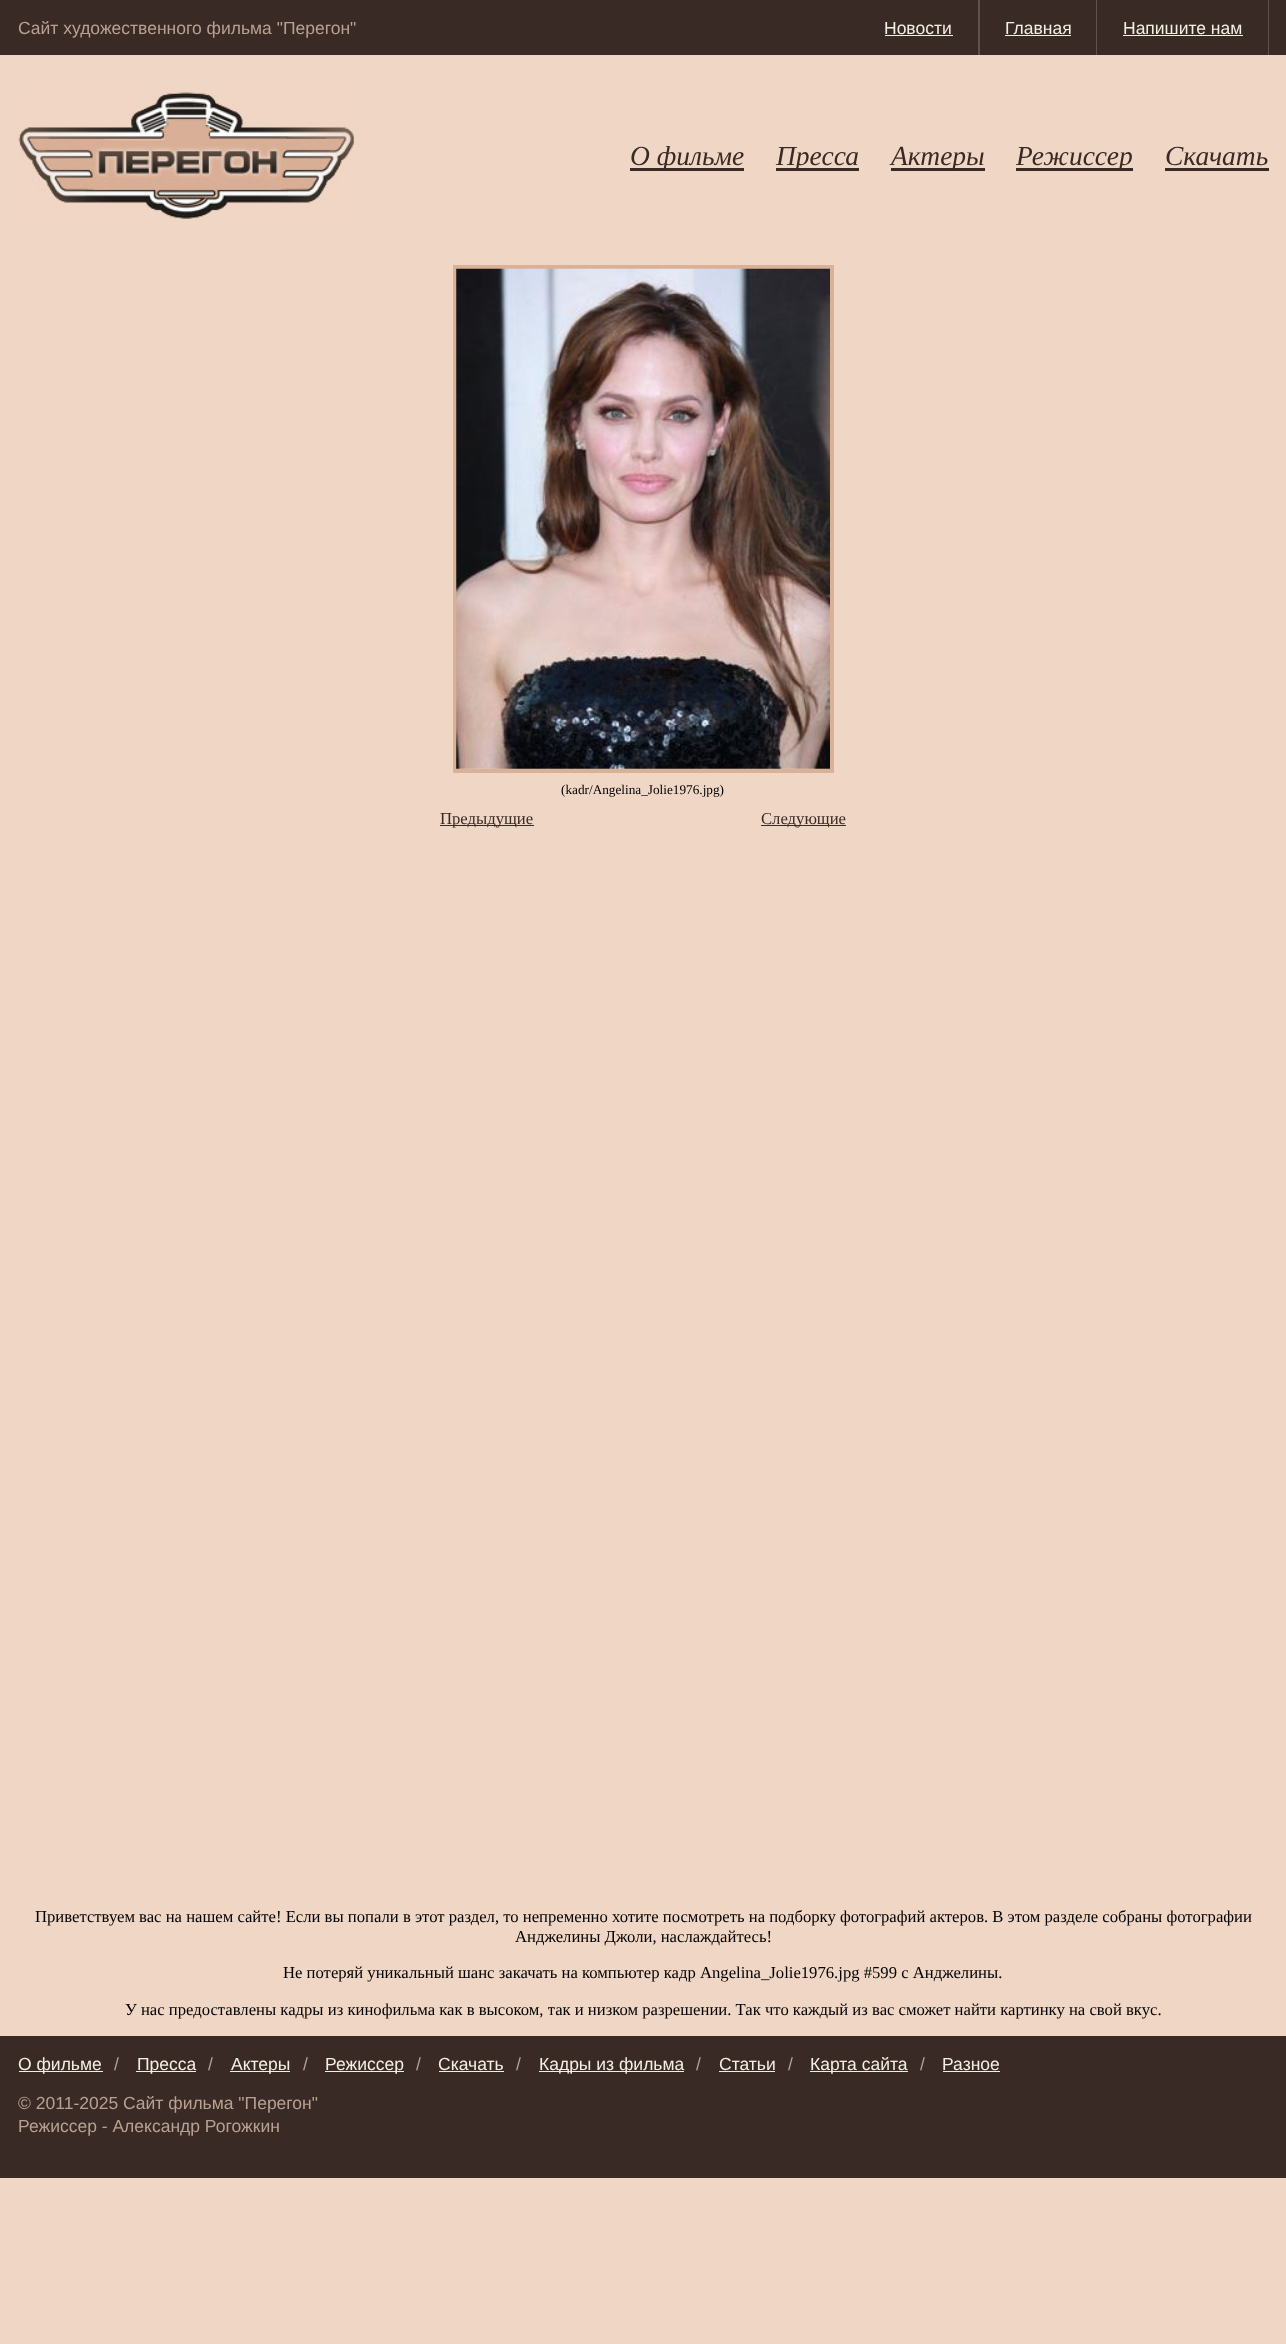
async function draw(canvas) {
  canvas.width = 1286;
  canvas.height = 2344;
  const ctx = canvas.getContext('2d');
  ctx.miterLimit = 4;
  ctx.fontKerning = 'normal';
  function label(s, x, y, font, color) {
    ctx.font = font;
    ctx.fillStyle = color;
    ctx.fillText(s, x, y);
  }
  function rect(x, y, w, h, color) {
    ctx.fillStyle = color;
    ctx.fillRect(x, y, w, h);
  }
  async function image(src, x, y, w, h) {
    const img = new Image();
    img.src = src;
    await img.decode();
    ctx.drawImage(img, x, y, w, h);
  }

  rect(0, 0, 1286, 2344, '#f0d6c5');
  rect(0, 0, 1286, 55, '#392a26');
  label('Сайт художественного фильма "Перегон"', 18, 34, '17.5px Liberation Sans', '#b8a192');
  label('Новости', 884, 34, '17.5px Liberation Sans', '#f3f0e1');
  rect(885, 35, 68, 1, '#f3f0e1');
  rect(1096, 0, 1, 55, '#5e534b');
  rect(978, 0, 2, 55, '#5e534b');
  label('Главная', 1005, 34, '17.5px Liberation Sans', '#f3f0e1');
  rect(1005, 35, 66, 1, '#f3f0e1');
  rect(1268, 0, 1, 55, '#5e534b');
  label('Напишите нам', 1123, 34, '17.5px Liberation Sans', '#f3f0e1');
  rect(1123, 35, 120, 1, '#f3f0e1');
  await image('assets/img1.png', 18, 92, 336, 127);
  rect(630, 168, 114, 3, '#392a26');
  label('О фильме', 630, 165, 'italic 27.5px Liberation Serif', '#392a26');
  rect(776, 168, 83, 3, '#392a26');
  label('Пресса', 776, 165, 'italic 27.5px Liberation Serif', '#392a26');
  rect(891, 168, 94, 3, '#392a26');
  label('Актеры', 891, 165, 'italic 27.5px Liberation Serif', '#392a26');
  rect(1016, 168, 117, 3, '#392a26');
  label('Режиссер', 1016, 165, 'italic 27.5px Liberation Serif', '#392a26');
  label('Скачать', 1165, 165, 'italic 27.5px Liberation Serif', '#392a26');
  rect(1165, 168, 104, 3, '#392a26');
  ctx.strokeStyle = '#d9b197';
  ctx.lineWidth = 4;
  ctx.strokeRect(455, 267, 377, 504);
  await image('assets/img2.png', 456, 268, 374, 501);
  label('(kadr/Angelina_Jolie1976.jpg)', 561, 794, '13.25px Liberation Serif', '#000');
  rect(440, 825, 94, 1, '#392a26');
  label('Предыдущие', 440, 824, '16.67px Liberation Serif', '#392a26');
  rect(761, 825, 85, 1, '#392a26');
  label('Следующие', 761, 824, '16.67px Liberation Serif', '#392a26');
  label('Приветствуем вас на нашем сайте! Если вы попали в этот раздел, то непременно хотите посмотреть на подборку фотографий актеров. В этом разделе собраны фотографии', 35, 1922, '16.67px Liberation Serif', '#000');
  label('Анджелины Джоли, наслаждайтесь!', 515, 1942, '16.67px Liberation Serif', '#000');
  label('Не потеряй уникальный шанс закачать на компьютер кадр Angelina_Jolie1976.jpg #599 с Анджелины.', 283, 1978, '16.67px Liberation Serif', '#000');
  label('У нас предоставлены кадры из кинофильма как в высоком, так и низком разрешении. Так что каждый из вас сможет найти картинку на свой вкус.', 125, 2015, '16.67px Liberation Serif', '#000');
  rect(0, 2036, 1286, 142, '#392a26');
  rect(19, 2071, 84, 1, '#f3f0e1');
  label('О фильме', 18, 2070, '17.5px Liberation Sans', '#f3f0e1');
  label('/', 114, 2070, '17.5px Liberation Sans', '#b8a192');
  rect(136, 2071, 60, 1, '#f3f0e1');
  label('Пресса', 137, 2070, '17.5px Liberation Sans', '#f3f0e1');
  label('/', 208, 2070, '17.5px Liberation Sans', '#b8a192');
  rect(230, 2071, 60, 1, '#f3f0e1');
  label('Актеры', 231, 2070, '17.5px Liberation Sans', '#f3f0e1');
  label('/', 303, 2070, '17.5px Liberation Sans', '#b8a192');
  rect(325, 2071, 79, 1, '#f3f0e1');
  label('Режиссер', 325, 2070, '17.5px Liberation Sans', '#f3f0e1');
  label('/', 416, 2070, '17.5px Liberation Sans', '#b8a192');
  label('Скачать', 438, 2070, '17.5px Liberation Sans', '#f3f0e1');
  rect(439, 2071, 65, 1, '#f3f0e1');
  label('/', 516, 2070, '17.5px Liberation Sans', '#b8a192');
  rect(539, 2071, 145, 1, '#f3f0e1');
  label('Кадры из фильма', 539, 2070, '17.5px Liberation Sans', '#f3f0e1');
  label('/', 696, 2070, '17.5px Liberation Sans', '#b8a192');
  label('Статьи', 719, 2070, '17.5px Liberation Sans', '#f3f0e1');
  rect(719, 2071, 56, 1, '#f3f0e1');
  label('/', 788, 2070, '17.5px Liberation Sans', '#b8a192');
  rect(810, 2071, 98, 1, '#f3f0e1');
  label('Карта сайта', 810, 2070, '17.5px Liberation Sans', '#f3f0e1');
  label('/', 920, 2070, '17.5px Liberation Sans', '#b8a192');
  label('Разное', 942, 2070, '17.5px Liberation Sans', '#f3f0e1');
  rect(943, 2071, 57, 1, '#f3f0e1');
  label('© 2011-2025 Сайт фильма "Перегон"', 18, 2109, '17.5px Liberation Sans', '#b8a192');
  label('Режиссер - Александр Рогожкин', 18, 2132, '17.5px Liberation Sans', '#b8a192');
}

draw(document.querySelector('canvas'));
